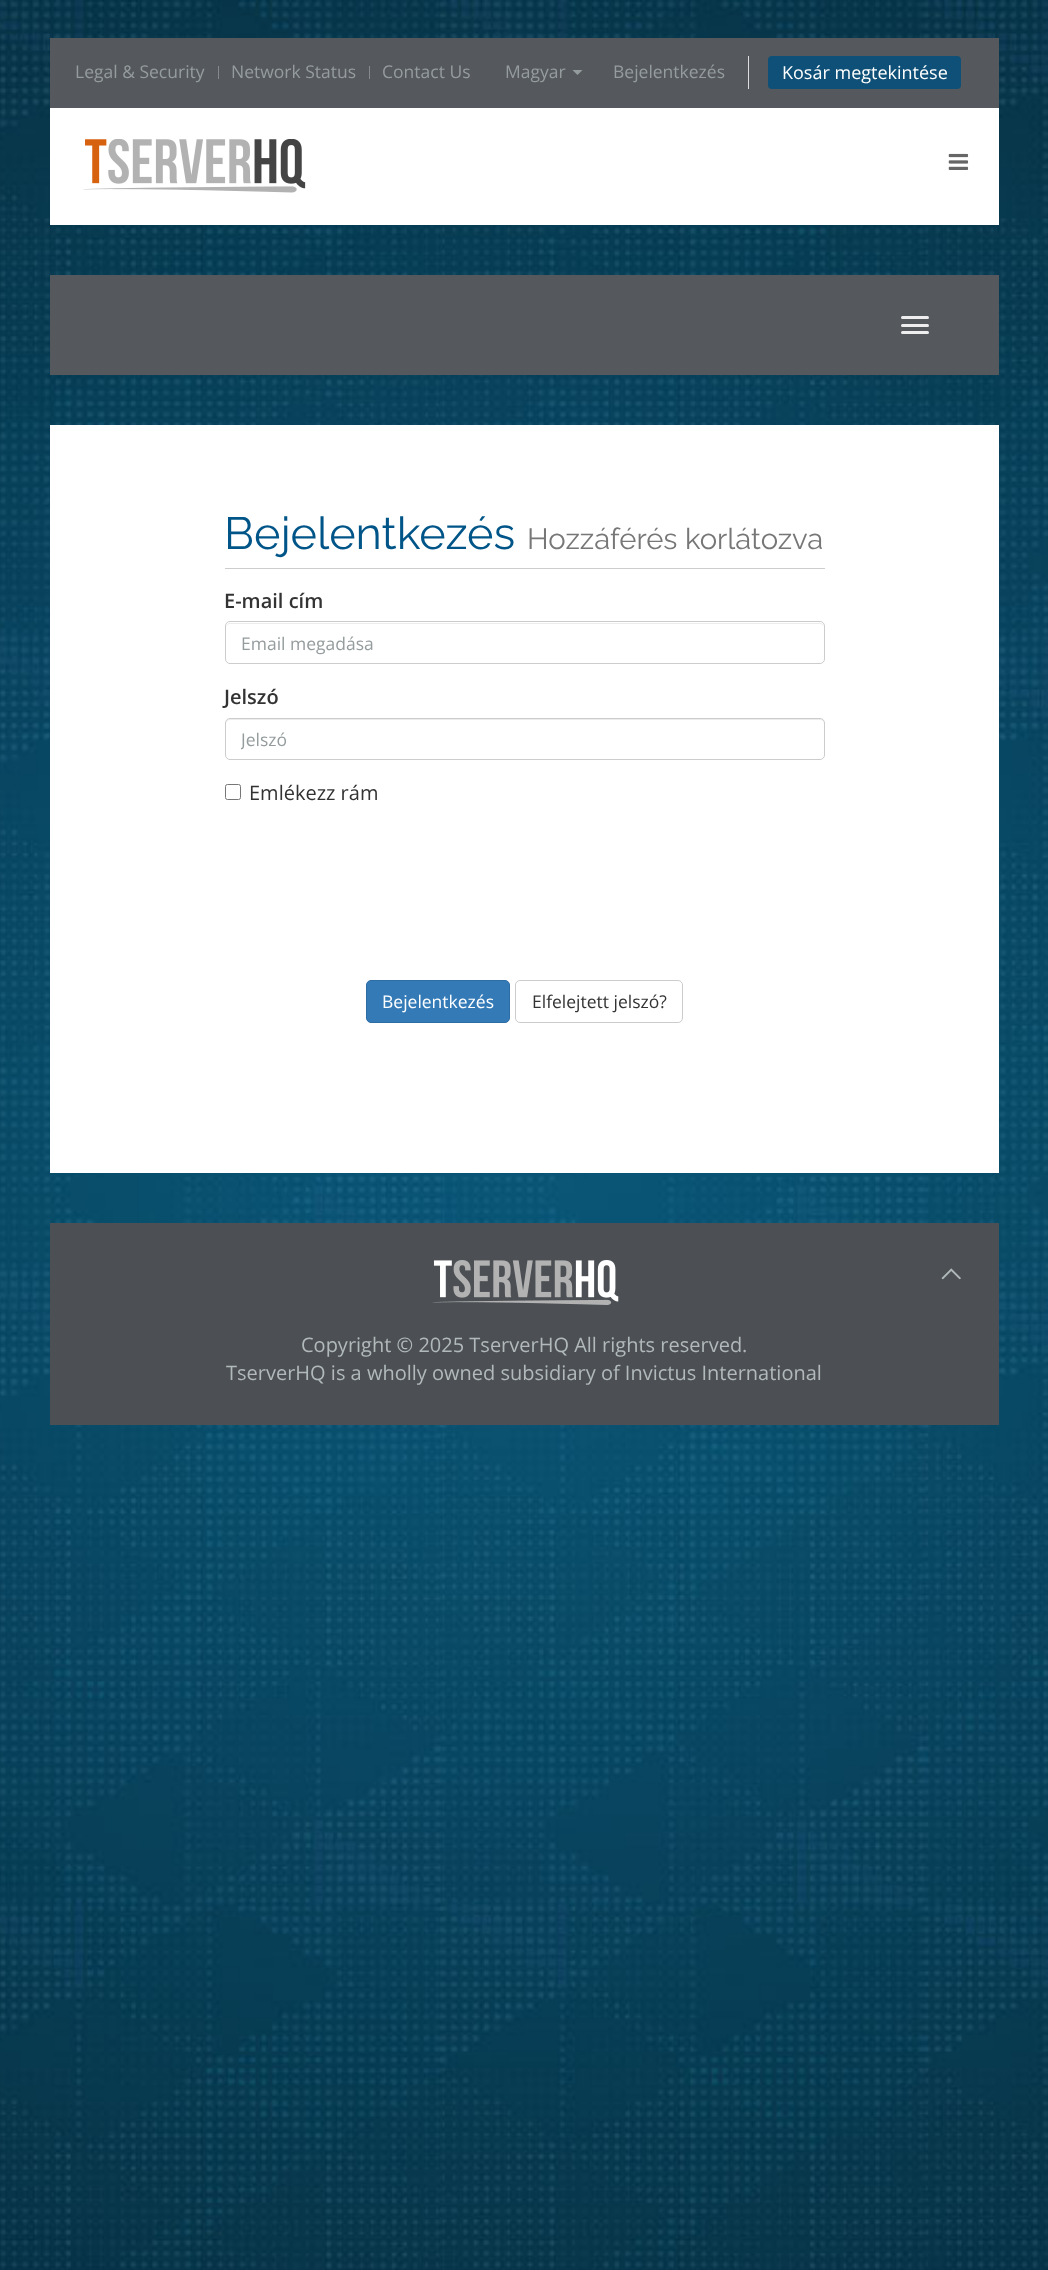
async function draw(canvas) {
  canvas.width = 1048;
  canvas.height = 2270;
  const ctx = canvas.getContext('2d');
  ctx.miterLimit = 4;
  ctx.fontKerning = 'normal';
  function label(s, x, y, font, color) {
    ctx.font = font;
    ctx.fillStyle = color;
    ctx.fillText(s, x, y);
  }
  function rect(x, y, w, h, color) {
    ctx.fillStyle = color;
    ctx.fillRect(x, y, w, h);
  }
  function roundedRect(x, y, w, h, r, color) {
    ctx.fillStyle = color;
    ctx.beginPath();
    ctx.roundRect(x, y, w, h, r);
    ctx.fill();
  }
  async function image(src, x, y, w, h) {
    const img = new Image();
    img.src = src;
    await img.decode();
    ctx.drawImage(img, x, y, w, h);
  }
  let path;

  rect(0, 0, 1048, 2270, '#fff');
  await image('assets/img1.png', 0, 0, 1048, 2270);
  rect(50, 38, 949, 70, '#55595d');
  label('Legal & Security', 75, 78, '17.5px Open Sans', '#959c9e');
  rect(218, 66, 1, 13, '#83898c');
  label('Network Status', 231, 78, '17.5px Open Sans', '#959c9e');
  rect(369, 66, 1, 13, '#83898c');
  label('Contact Us', 382, 78, '17.5px Open Sans', '#959c9e');
  label('Magyar', 505, 78, '17.5px Open Sans', '#959c9e');
  path = new Path2D('M572.5 70H582.5L577.5 75Z');
  ctx.fill(path);
  label('Bejelentkezés', 613, 78, '17.5px Open Sans', '#959c9e');
  rect(748, 56, 1, 33, '#ddd');
  roundedRect(768, 56, 193, 33, 4, '#0e5077');
  label('Kosár megtekintése', 782, 79, '18px Open Sans', '#fff');
  rect(50, 108, 949, 117, '#fff');
  await image('assets/img2.png', 83, 139, 223, 54);
  await image('assets/img3.png', 948, 153, 21, 17);
  rect(50, 275, 949, 100, '#55595d');
  roundedRect(901, 316, 28, 3, 1.5, '#eee');
  roundedRect(901, 324, 28, 3, 1.5, '#eee');
  roundedRect(901, 331, 28, 3, 1.5, '#eee');
  rect(50, 425, 949, 748, '#fff');
  rect(225, 568, 600, 1, '#ccc');
  label('Bejelentkezés', 224, 549, '45px Raleway', '#058');
  label('Hozzáférés korlátozva', 527, 549, '29.25px Raleway', '#777');
  label('E-mail cím', 224, 608, '600 20px Open Sans', '#333');
  ctx.fillStyle = '#ececec';
  path = new Path2D('M230 624H820C822 624 824 625 824 628V627C824 625 822 623 820 623H230C228 623 226 625 226 627V628C226 625 228 624 230 624Z');
  ctx.fill(path);
  ctx.beginPath();
  ctx.roundRect(225.5, 621.5, 599, 42, 4.5);
  ctx.strokeStyle = '#ccc';
  ctx.stroke();
  label('Email megadása', 241, 650, '17.5px Open Sans', '#959c9e');
  label('Jelszó', 224, 704, '600 20px Open Sans', '#333');
  ctx.fillStyle = '#ececec';
  path = new Path2D('M230 720H820C822 720 824 722 824 724V723C824 721 822 719 820 719H230C228 719 226 721 226 723V724C226 722 228 720 230 720Z');
  ctx.fill(path);
  ctx.beginPath();
  ctx.roundRect(225.5, 718.5, 599, 41, 4.5);
  ctx.stroke();
  ctx.save();
  ctx.beginPath();
  ctx.rect(241, 728, 568, 23);
  ctx.clip();
  label('Jelszó', 241, 746, '17.5px Open Sans', '#959c9e');
  ctx.restore();
  ctx.beginPath();
  ctx.roundRect(225.5, 784.5, 15, 15, 2);
  ctx.strokeStyle = '#767676';
  ctx.stroke();
  label('Emlékezz rám', 249, 800, '20px Open Sans', '#333');
  ctx.fillStyle = '#337ab7';
  ctx.beginPath();
  ctx.roundRect(366.5, 980.5, 143, 42, 4.5);
  ctx.fill();
  ctx.strokeStyle = '#2e6da4';
  ctx.stroke();
  label('Bejelentkezés', 382, 1008, '17.5px Open Sans', '#fff');
  ctx.beginPath();
  ctx.roundRect(515.5, 980.5, 167, 42, 4.5);
  ctx.strokeStyle = '#ccc';
  ctx.stroke();
  label('Elfelejtett jelszó?', 532, 1008, '17.5px Open Sans', '#333');
  rect(50, 1223, 949, 202, '#4c5054');
  await image('assets/img4.png', 941, 1268, 20, 12);
  await image('assets/img5.png', 432, 1260, 187, 45);
  label('Copyright © 2025 TserverHQ All rights reserved.', 301, 1352, '20px Open Sans', '#b1b9ba');
  label('TserverHQ is a wholly owned subsidiary of Invictus International', 226, 1380, '20px Open Sans', '#b1b9ba');
}

draw(document.querySelector('canvas'));
